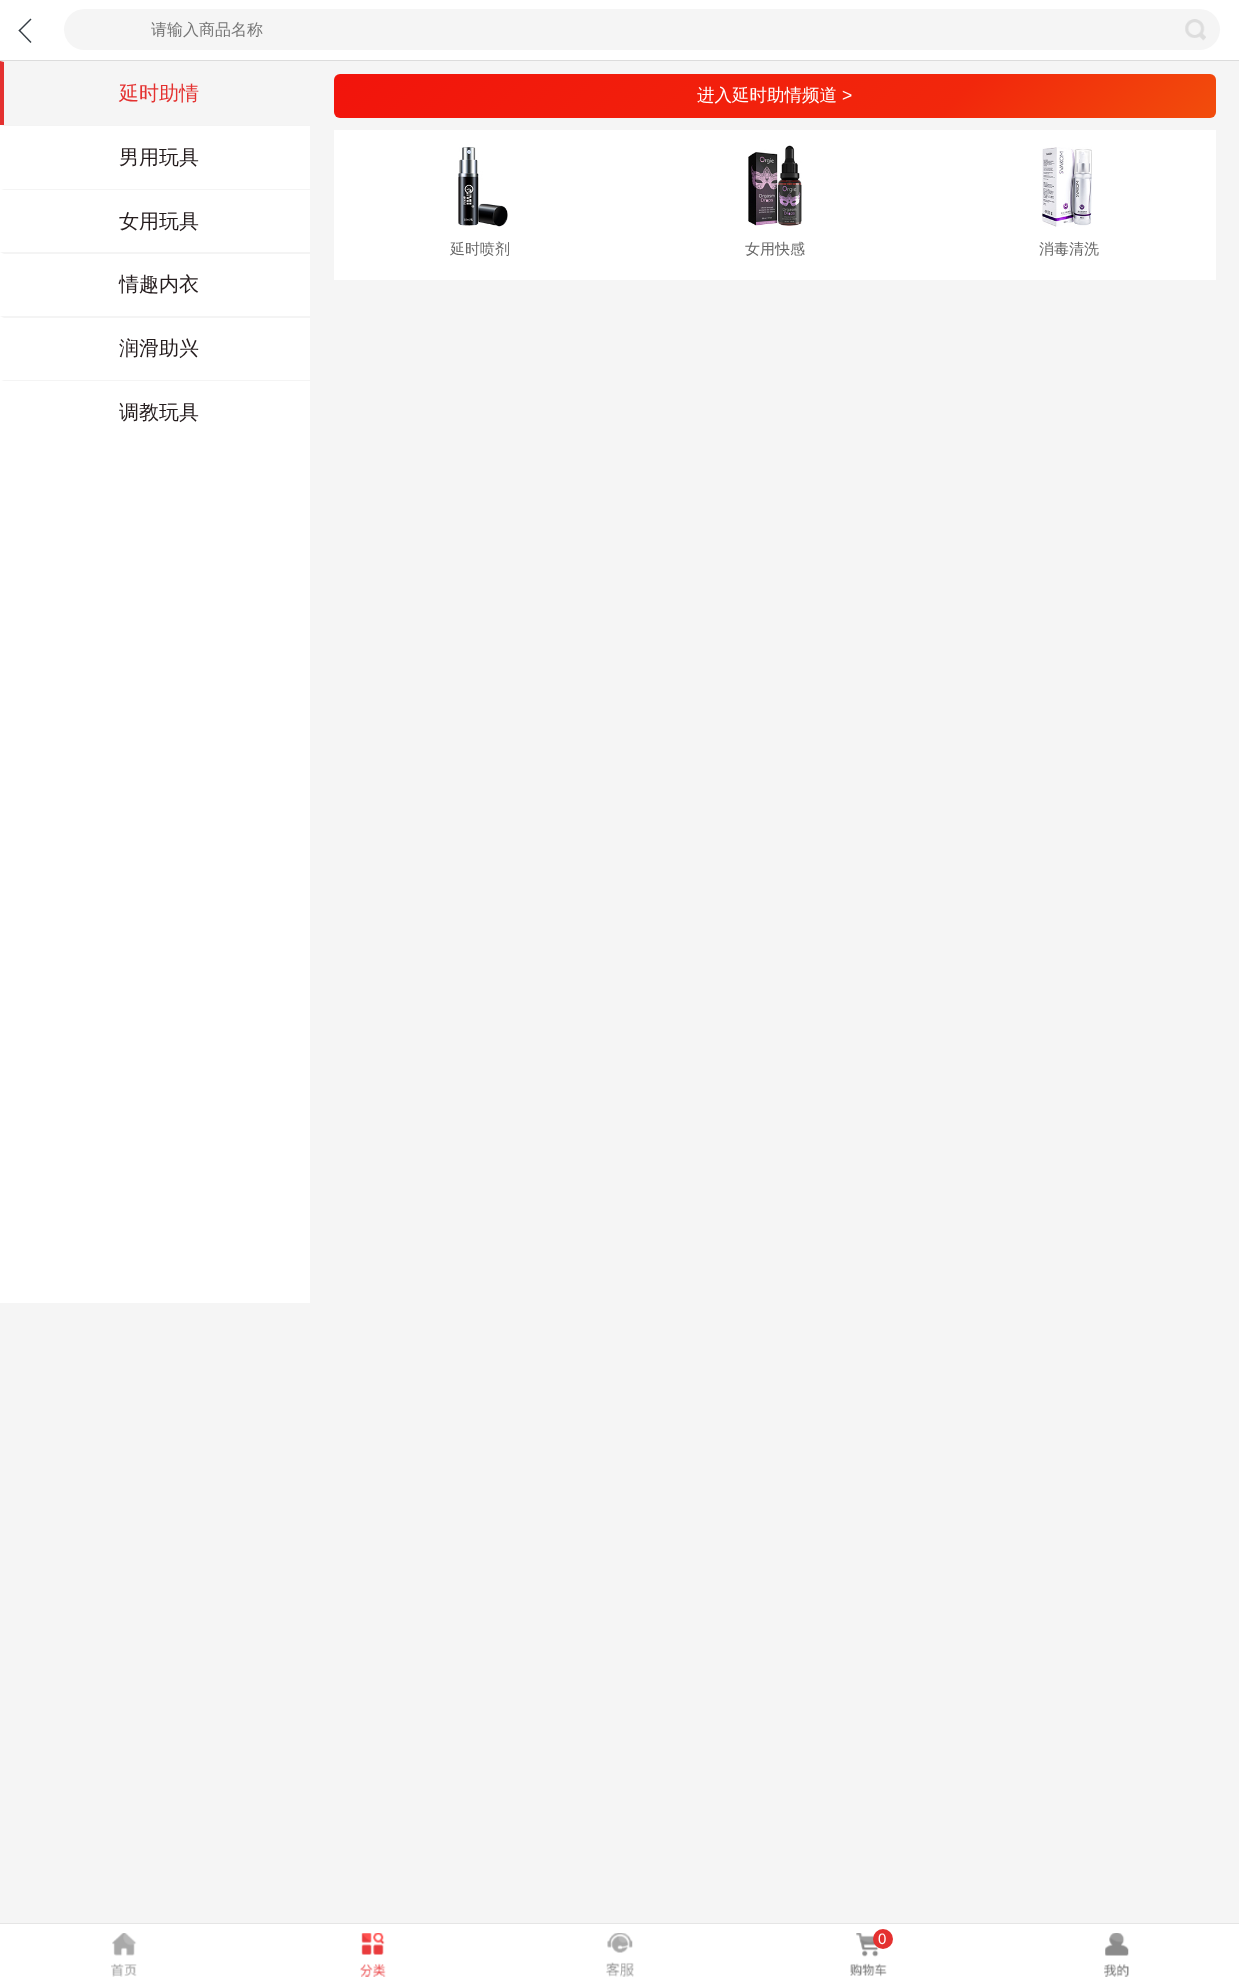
async function draw(canvas) {
  canvas.width = 1239;
  canvas.height = 1986;
  const ctx = canvas.getContext('2d');
  ctx.miterLimit = 4;
  ctx.fontKerning = 'normal';
  function label(s, x, y, font, color) {
    ctx.font = font;
    ctx.fillStyle = color;
    ctx.fillText(s, x, y);
  }
  function rect(x, y, w, h, color) {
    ctx.fillStyle = color;
    ctx.fillRect(x, y, w, h);
  }
  function roundedRect(x, y, w, h, r, color) {
    ctx.fillStyle = color;
    ctx.beginPath();
    ctx.roundRect(x, y, w, h, r);
    ctx.fill();
  }
  async function image(src, x, y, w, h) {
    const img = new Image();
    img.src = src;
    await img.decode();
    ctx.drawImage(img, x, y, w, h);
  }
  let gradient, path;

  rect(0, 0, 1239, 1986, '#f5f5f5');
  rect(0, 0, 1239, 60, '#fff');
  rect(0, 60, 1239, 1, '#dcdcdc');
  ctx.fillStyle = '#353d44';
  path = new Path2D('M18.5 30.5L30.5 18.5L31.5 19.5L19.5 31.5Z');
  ctx.fill(path);
  path = new Path2D('M18.5 30.5L19.5 29.5L31.5 42L30.5 43Z');
  ctx.fill(path);
  roundedRect(64, 9, 1156, 41, 20.5, '#f5f5f5');
  label('请输入商品名称', 151, 35, '500 16px WenQuanYi Zen Hei', '#757575');
  await image('assets/img1.png', 1185, 19, 21, 22);
  rect(0, 125, 310, 1178, '#fff');
  ctx.fillStyle = '#e43130';
  path = new Path2D('M0 125V61L4 62V125Z');
  ctx.fill(path);
  label('延时助情', 119, 100, '500 20px WenQuanYi Zen Hei', '#e43130');
  ctx.save();
  ctx.beginPath();
  ctx.rect(0, 61, 310, 383);
  ctx.clip();
  ctx.fillStyle = '#f4f4f4';
  path = new Path2D('M0 125H314V126H4Z');
  ctx.fill(path);
  ctx.restore();
  ctx.fillStyle = '#fff';
  path = new Path2D('M0 189V125L4 126V189Z');
  ctx.fill(path);
  label('男用玩具', 119, 164, '500 20px WenQuanYi Zen Hei', '#241c1d');
  ctx.save();
  ctx.beginPath();
  ctx.rect(0, 61, 310, 383);
  ctx.clip();
  ctx.fillStyle = '#f4f4f4';
  path = new Path2D('M0 189H314V190H4Z');
  ctx.fill(path);
  ctx.restore();
  ctx.fillStyle = '#fff';
  path = new Path2D('M0 252V189L4 190V252Z');
  ctx.fill(path);
  label('女用玩具', 119, 228, '500 20px WenQuanYi Zen Hei', '#241c1d');
  ctx.save();
  ctx.beginPath();
  ctx.rect(0, 61, 310, 383);
  ctx.clip();
  ctx.fillStyle = '#f4f4f4';
  path = new Path2D('M0 252H314V254H4Z');
  ctx.fill(path);
  ctx.restore();
  label('情趣内衣', 119, 291, '500 20px WenQuanYi Zen Hei', '#241c1d');
  ctx.save();
  ctx.beginPath();
  ctx.rect(0, 61, 310, 383);
  ctx.clip();
  ctx.fillStyle = '#f4f4f4';
  path = new Path2D('M0 316H314V318H4Z');
  ctx.fill(path);
  ctx.restore();
  label('润滑助兴', 119, 355, '500 20px WenQuanYi Zen Hei', '#241c1d');
  ctx.save();
  ctx.beginPath();
  ctx.rect(0, 61, 310, 383);
  ctx.clip();
  ctx.fillStyle = '#f4f4f4';
  path = new Path2D('M0 380H314V381H4Z');
  ctx.fill(path);
  ctx.restore();
  ctx.fillStyle = '#fff';
  path = new Path2D('M0 444V380L4 381V444Z');
  ctx.fill(path);
  label('调教玩具', 119, 419, '500 20px WenQuanYi Zen Hei', '#241c1d');
  gradient = ctx.createLinearGradient(543, -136, 1007, 327);
  gradient.addColorStop(0, '#f2140c');
  gradient.addColorStop(0.7, '#f2270c');
  gradient.addColorStop(1, '#f24d0c');
  ctx.fillStyle = gradient;
  ctx.beginPath();
  ctx.roundRect(334, 74, 882, 44, 6);
  ctx.fill();
  label('进入延时助情频道', 697, 101, '500 17.5px WenQuanYi Zen Hei', '#fff');
  label('>', 842, 101, '17.5px Liberation Sans', '#fff');
  rect(334, 130, 882, 150, '#fff');
  await image('assets/img2.png', 458, 147, 50, 80);
  label('延时喷剂', 450, 254, '500 15px WenQuanYi Zen Hei', '#666');
  await image('assets/img3.png', 748, 145, 54, 81);
  label('女用快感', 745, 254, '500 15px WenQuanYi Zen Hei', '#666');
  await image('assets/img4.png', 1042, 147, 50, 80);
  label('消毒清洗', 1039, 254, '500 15px WenQuanYi Zen Hei', '#666');
  rect(0, 1924, 1239, 62, '#fff');
  rect(0, 1923, 1239, 1, '#e5e5e5');
  await image('assets/img5.png', 111, 1933, 26, 44);
  await image('assets/img6.png', 360, 1933, 26, 44);
  await image('assets/img7.png', 606, 1933, 28, 44);
  await image('assets/img8.png', 850, 1933, 37, 44);
  ctx.fillStyle = '#e43130';
  ctx.beginPath();
  ctx.arc(883, 1939, 10, 0, 2 * Math.PI);
  ctx.fill();
  label('0', 878, 1944, '15px Liberation Sans', '#fff');
  await image('assets/img9.png', 1104, 1933, 25, 44);
}

draw(document.querySelector('canvas'));
